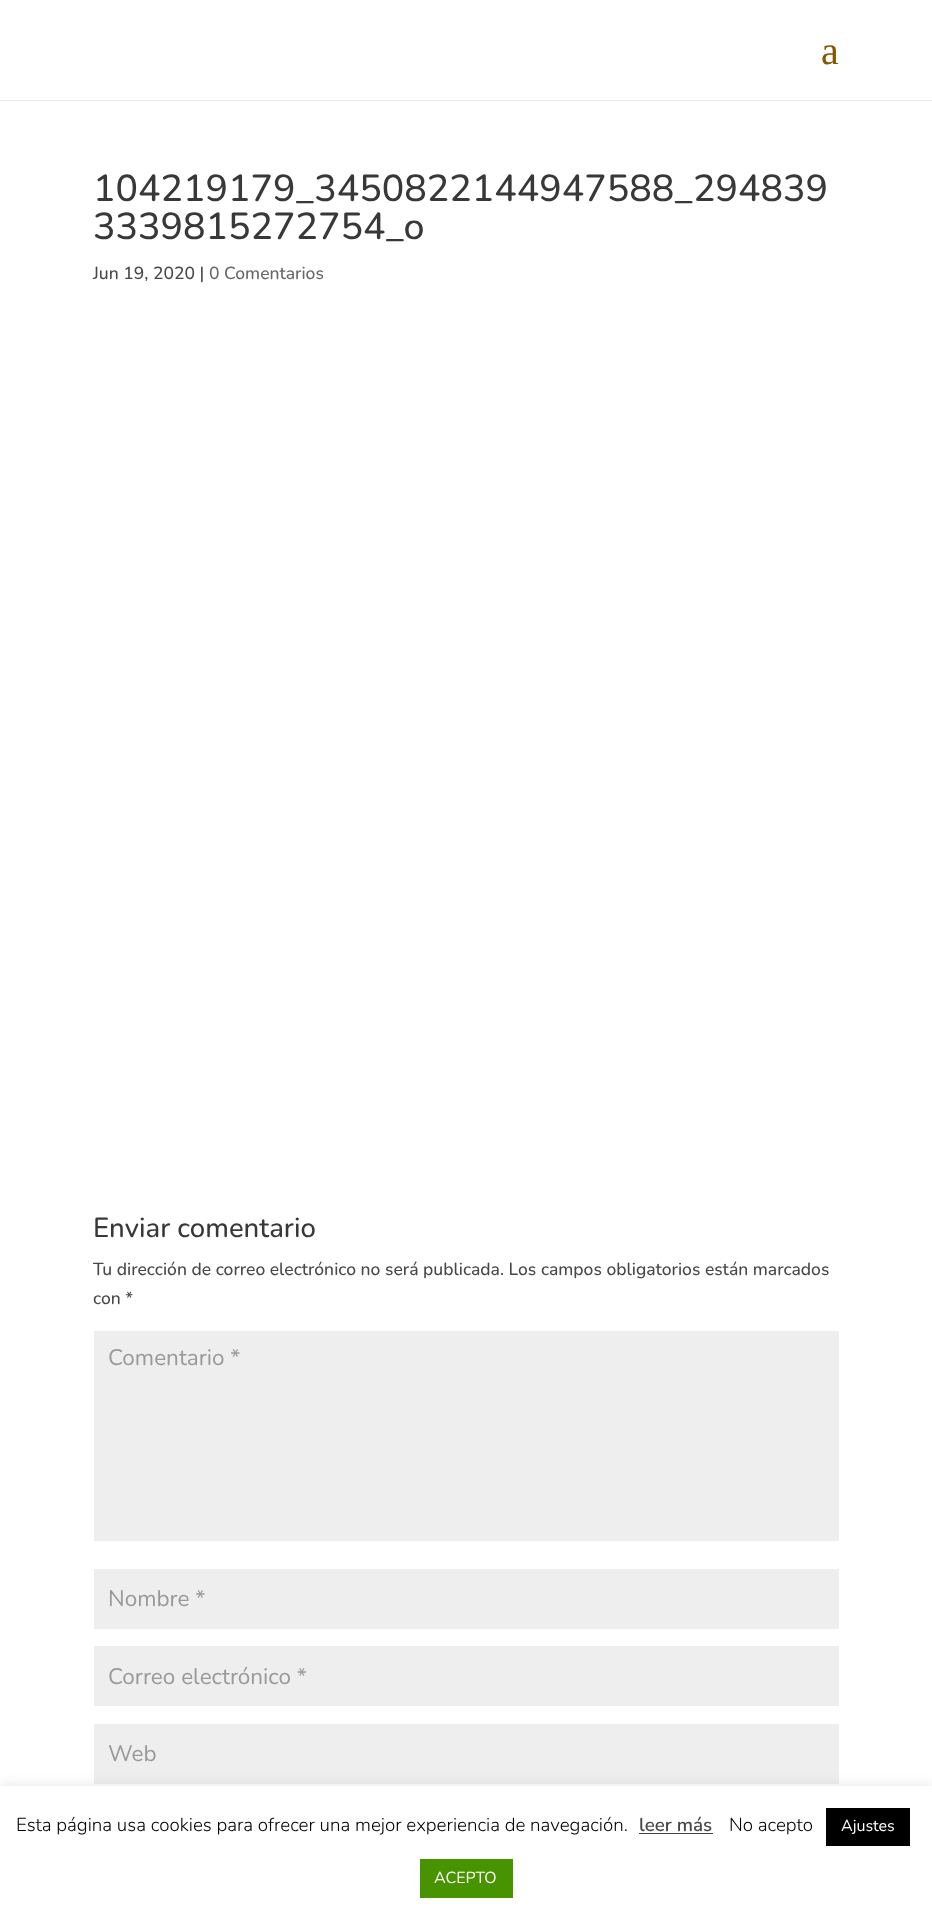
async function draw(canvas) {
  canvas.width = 932;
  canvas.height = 1918;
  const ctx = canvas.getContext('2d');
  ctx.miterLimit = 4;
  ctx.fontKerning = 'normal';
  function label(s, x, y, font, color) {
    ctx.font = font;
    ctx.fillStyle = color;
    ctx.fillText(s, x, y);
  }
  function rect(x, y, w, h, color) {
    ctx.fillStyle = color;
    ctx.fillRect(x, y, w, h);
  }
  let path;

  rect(0, 0, 932, 1918, '#fff');
  ctx.fillStyle = '#e6e6e6';
  path = new Path2D('M0 100V101H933V1H932V100Z');
  ctx.fill(path);
  label('a', 821, 64, '40px Liberation Serif', '#825800');
  label('104219179_3450822144947588_294839', 93, 201, '200 37.5px Nunito', '#383838');
  label('3339815272754_o', 93, 239, '200 37.5px Nunito', '#383838');
  label('Jun 19, 2020 |', 93, 279, '200 17.5px Nunito', '#474747');
  label('0 Comentarios', 209, 279, '200 17.5px Nunito', '#666');
  label('Enviar comentario', 93, 1237, '200 27.5px Nunito', '#383838');
  label('Tu dirección de correo electrónico no será publicada. Los campos obligatorios están marcados', 93, 1275, '200 17.5px Nunito', '#474747');
  label('con *', 93, 1304, '200 17.5px Nunito', '#474747');
  rect(94, 1331, 745, 210, '#eee');
  label('Comentario *', 108, 1365, '200 22.5px "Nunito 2"', '#999');
  rect(94, 1569, 745, 60, '#eee');
  label('Nombre *', 108, 1606, '200 22.5px "Nunito 2"', '#999');
  rect(94, 1646, 745, 60, '#eee');
  label('Correo electrónico *', 108, 1684, '200 22.5px "Nunito 2"', '#999');
  rect(94, 1724, 745, 60, '#eee');
  label('Web', 108, 1761, '200 22.5px "Nunito 2"', '#999');
  ctx.fillStyle = '#acabab4d';
  ctx.filter = 'blur(6px)';
  ctx.beginPath();
  ctx.rect(0, 1785, 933, 133);
  ctx.fill();
  ctx.filter = 'none';
  rect(0, 1786, 932, 132, '#fff');
  label('Esta página usa cookies para ofrecer una mejor experiencia de navegación.', 16, 1831, '200 18.75px "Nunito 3"', '#000');
  label('leer más', 639, 1831, '200 18.75px "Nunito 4"', '#474747');
  rect(639, 1833, 74, 1, '#444');
  label('No acepto', 729, 1831, '200 18.75px "Nunito 3"', '#000');
  rect(826, 1808, 84, 38, '#000');
  label('Ajustes', 841, 1831, '200 16px "Nunito 2"', '#fff');
  rect(420, 1859, 93, 39, '#479300');
  label('ACEPTO', 434, 1883, '200 16px "Nunito 2"', '#fff');
}

draw(document.querySelector('canvas'));
